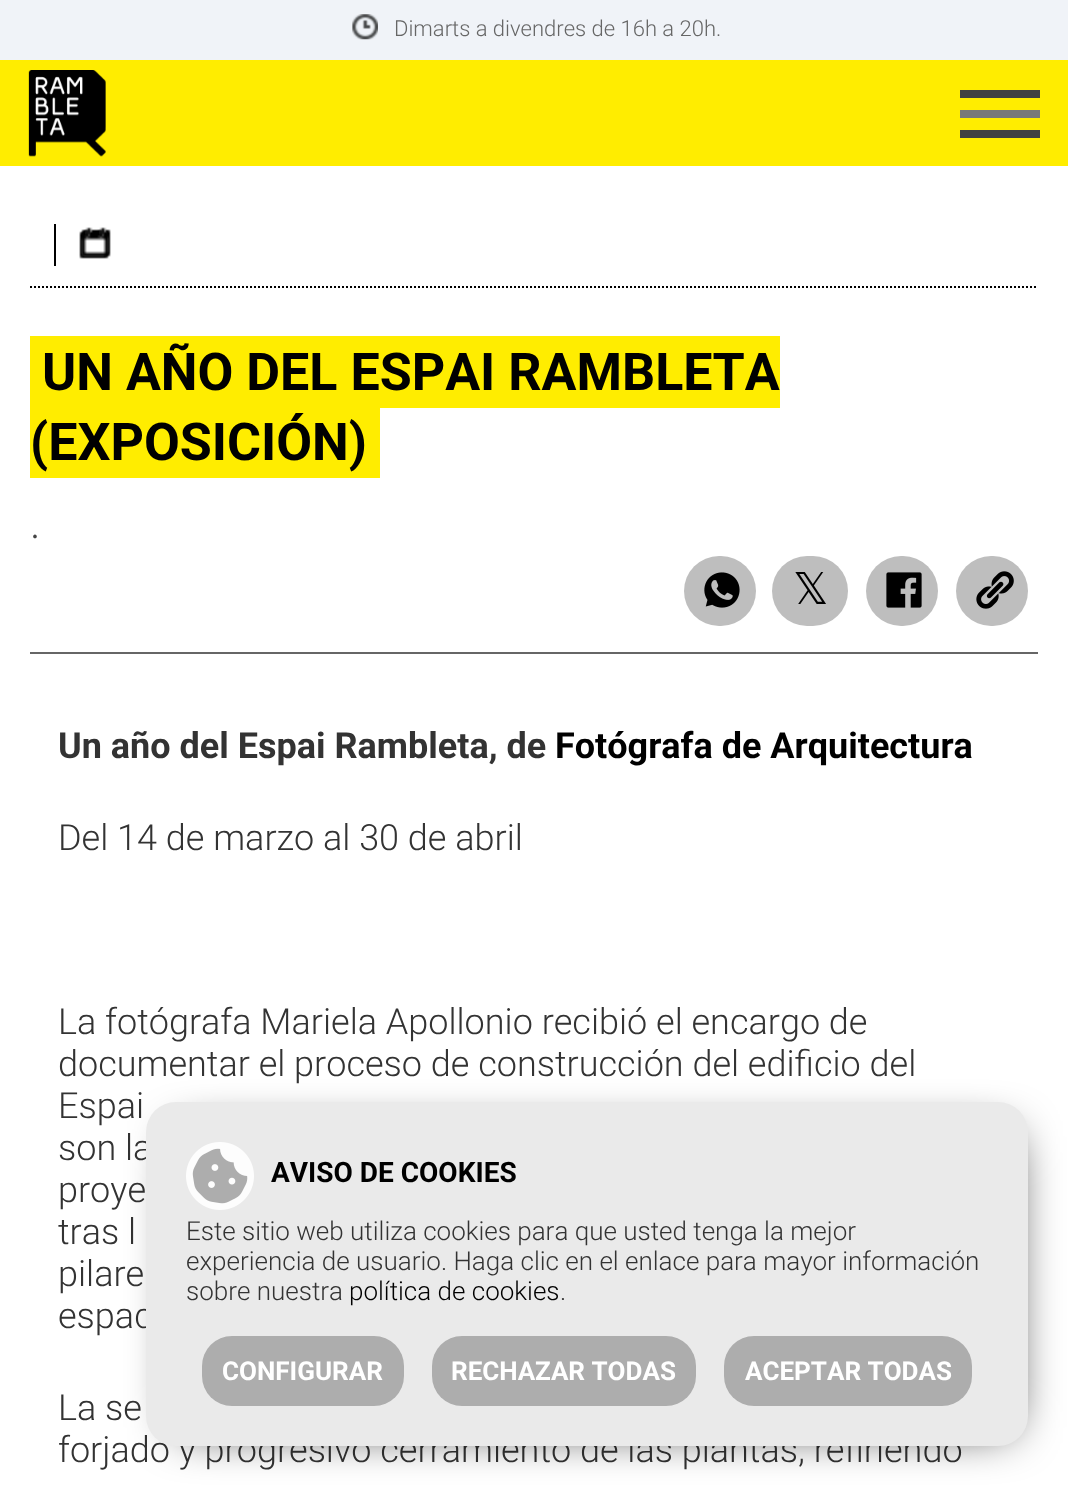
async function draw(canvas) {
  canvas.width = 1068;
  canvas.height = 1486;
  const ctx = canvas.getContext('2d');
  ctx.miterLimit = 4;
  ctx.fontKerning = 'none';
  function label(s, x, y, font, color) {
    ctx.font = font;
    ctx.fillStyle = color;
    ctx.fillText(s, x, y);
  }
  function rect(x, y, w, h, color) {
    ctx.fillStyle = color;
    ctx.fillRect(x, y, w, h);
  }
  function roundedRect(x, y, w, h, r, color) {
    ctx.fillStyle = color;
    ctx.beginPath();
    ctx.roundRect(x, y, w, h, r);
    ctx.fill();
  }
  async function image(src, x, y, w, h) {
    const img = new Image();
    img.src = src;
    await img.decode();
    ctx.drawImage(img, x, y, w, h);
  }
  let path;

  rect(0, 0, 1068, 1486, '#fff');
  rect(0, 60, 1068, 106, '#ffed00');
  rect(0, 0, 1068, 60, '#f0f3f8');
  await image('assets/img1.png', 352, 14, 26, 26);
  label('Dimarts a divendres de 16h a 20h.', 394, 36, '300 22px Roboto', '#666');
  await image('assets/img2.png', 28, 70, 78, 87);
  rect(960, 110, 80, 8, '#797979');
  rect(960, 90, 80, 8, '#424241');
  rect(960, 130, 80, 8, '#424241');
  await image('assets/img3.png', 79, 229, 30, 30);
  rect(54, 224, 2, 42, '#000');
  await image('assets/img4.png', 81, 227, 30, 30);
  path = new Path2D('M30 287H1038');
  ctx.strokeStyle = '#000';
  ctx.lineWidth = 2;
  ctx.setLineDash([2, 2]);
  ctx.stroke(path);
  rect(30, 336, 750, 72, '#ffed00');
  label('UN AÑO DEL ESPAI RAMBLETA', 42, 390, 'bold 52px Roboto', '#000');
  rect(30, 408, 350, 70, '#ffed00');
  label('(EXPOSICIÓN)', 30, 460, 'bold 52px Roboto', '#000');
  label('.', 30, 538, '300 44px Roboto', '#454545');
  roundedRect(684, 556, 72, 70, 35, '#bebebe');
  await image('assets/img5.png', 704, 572, 36, 36);
  roundedRect(772, 556, 76, 70, 35, '#bebebe');
  label('𝕏', 793, 604, '44px DejaVu Sans', '#000');
  roundedRect(866, 556, 72, 70, 35, '#bebebe');
  await image('assets/img6.png', 886, 572, 36, 36);
  roundedRect(956, 556, 72, 70, 35, '#bebebe');
  await image('assets/img7.png', 976, 571, 38, 38);
  rect(30, 652, 1008, 2, '#666');
  label('Un año del Espai Rambleta, de', 58, 758, 'bold 36px Roboto', '#333');
  label('Fotógrafa de Arquitectura', 555, 758, 'bold 36px Roboto', '#000');
  label('Del 14 de marzo al 30 de abril', 58, 850, '300 36px Roboto', '#333');
  label('La fotógrafa Mariela Apollonio recibió el encargo de', 58, 1034, '300 36px Roboto', '#333');
  label('documentar el proceso de construcción del edificio del', 58, 1076, '300 36px Roboto', '#333');
  label('Espai', 58, 1118, '300 36px Roboto', '#333');
  label('son la', 58, 1160, '300 36px Roboto', '#333');
  label('proye', 58, 1202, '300 36px Roboto', '#333');
  label('tras l', 58, 1244, '300 36px Roboto', '#333');
  label('pilare', 58, 1286, '300 36px Roboto', '#333');
  label('espac', 58, 1328, '300 36px Roboto', '#333');
  label('La se', 58, 1420, '300 36px Roboto', '#333');
  label('forjado y progresivo cerramiento de las plantas, refiriendo', 58, 1462, '300 36px Roboto', '#333');
  ctx.fillStyle = '#000';
  ctx.filter = 'blur(24px)';
  ctx.beginPath();
  ctx.roundRect(180, 1136, 830, 292, 4);
  ctx.fill();
  ctx.filter = 'none';
  roundedRect(146, 1102, 882, 344, 30, '#eaeaea');
  await image('assets/img8.png', 186, 1142, 68, 68);
  label('AVISO DE COOKIES', 271, 1182, 'bold 28px Roboto', '#000');
  label('Este sitio web utiliza cookies para que usted tenga la mejor', 186, 1240, '300 26px Roboto', '#333');
  label('experiencia de usuario. Haga clic en el enlace para mayor información', 186, 1270, '300 26px Roboto', '#333');
  label('sobre nuestra', 186, 1300, '300 26px Roboto', '#333');
  label('política de cookies', 349, 1300, '300 26px Roboto', '#000');
  label('.', 560, 1300, '300 26px Roboto', '#333');
  roundedRect(202, 1336, 202, 70, 30, '#adadad');
  label('CONFIGURAR', 222, 1380, 'bold 26px Roboto', '#fff');
  roundedRect(432, 1336, 264, 70, 30, '#adadad');
  label('RECHAZAR TODAS', 451, 1380, 'bold 26px Roboto', '#fff');
  roundedRect(724, 1336, 248, 70, 30, '#adadad');
  label('ACEPTAR TODAS', 745, 1380, 'bold 26px Roboto', '#fff');
}

draw(document.querySelector('canvas'));
